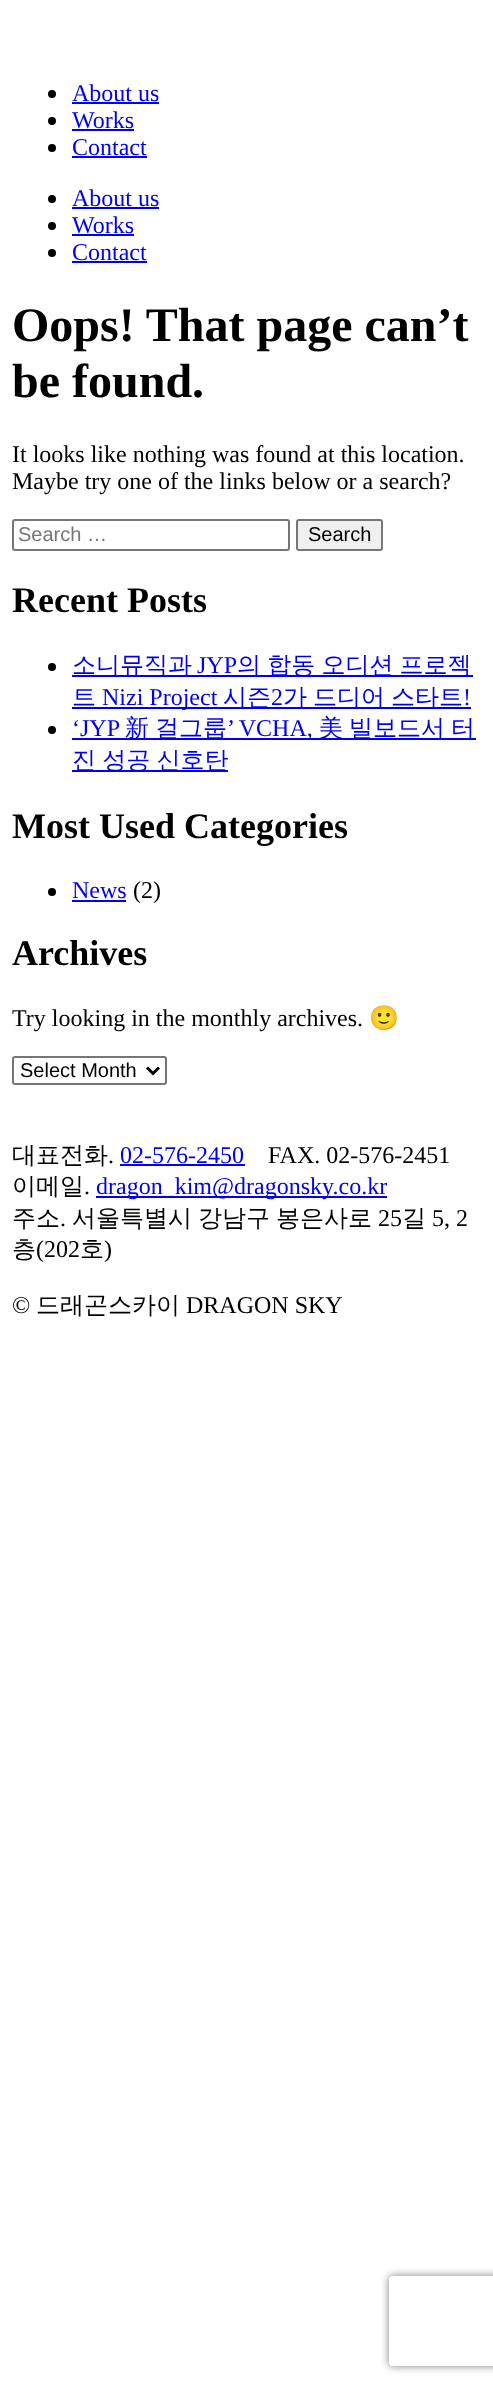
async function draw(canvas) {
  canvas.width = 493;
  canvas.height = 2386;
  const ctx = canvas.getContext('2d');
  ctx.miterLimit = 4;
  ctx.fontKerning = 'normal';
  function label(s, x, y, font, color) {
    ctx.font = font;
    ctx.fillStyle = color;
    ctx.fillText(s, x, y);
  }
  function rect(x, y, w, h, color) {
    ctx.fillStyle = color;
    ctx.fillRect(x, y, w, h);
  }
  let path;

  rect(0, 0, 493, 2386, '#fff');
  ctx.fillStyle = '#000';
  ctx.beginPath();
  ctx.arc(52, 94, 4, 0, 2 * Math.PI);
  ctx.fill();
  label('About us', 72, 101, '24px Liberation Serif', '#00e');
  rect(72, 102, 87, 2, '#00e');
  ctx.fillStyle = '#000';
  ctx.beginPath();
  ctx.arc(52, 121, 4, 0, 2 * Math.PI);
  ctx.fill();
  label('Works', 72, 128, '24px Liberation Serif', '#00e');
  rect(72, 129, 62, 2, '#00e');
  ctx.fillStyle = '#000';
  ctx.beginPath();
  ctx.arc(52, 148, 4, 0, 2 * Math.PI);
  ctx.fill();
  label('Contact', 72, 155, '24px Liberation Serif', '#00e');
  rect(72, 156, 75, 2, '#00e');
  ctx.fillStyle = '#000';
  ctx.beginPath();
  ctx.arc(52, 199, 4, 0, 2 * Math.PI);
  ctx.fill();
  label('About us', 72, 206, '24px Liberation Serif', '#00e');
  rect(72, 207, 87, 2, '#00e');
  ctx.fillStyle = '#000';
  ctx.beginPath();
  ctx.arc(52, 226, 4, 0, 2 * Math.PI);
  ctx.fill();
  label('Works', 72, 233, '24px Liberation Serif', '#00e');
  rect(72, 234, 62, 2, '#00e');
  ctx.fillStyle = '#000';
  ctx.beginPath();
  ctx.arc(52, 253, 4, 0, 2 * Math.PI);
  ctx.fill();
  label('Contact', 72, 260, '24px Liberation Serif', '#00e');
  rect(72, 261, 75, 2, '#00e');
  label('Oops! That page can’t', 12, 341, 'bold 48px Liberation Serif', '#000');
  label('be found.', 12, 397, 'bold 48px Liberation Serif', '#000');
  label('It looks like nothing was found at this location.', 12, 462, '24px Liberation Serif', '#000');
  label('Maybe try one of the links below or a search?', 12, 489, '24px Liberation Serif', '#000');
  ctx.beginPath();
  ctx.roundRect(13, 520, 276, 30, 2);
  ctx.strokeStyle = '#767676';
  ctx.lineWidth = 2;
  ctx.stroke();
  label('Search …', 18, 541, '20px Liberation Sans', '#757575');
  ctx.fillStyle = '#efefef';
  ctx.beginPath();
  ctx.roundRect(297, 520, 85, 30, 2);
  ctx.fill();
  ctx.stroke();
  label('Search', 308, 541, '20px Liberation Sans', '#000');
  label('Recent Posts', 12, 612, 'bold 36px Liberation Serif', '#000');
  ctx.beginPath();
  ctx.arc(52, 667, 4, 0, 2 * Math.PI);
  ctx.fill();
  rect(72, 675, 401, 2, '#00e');
  label('소니뮤직과', 72, 673, '500 24px WenQuanYi Zen Hei', '#00e');
  label('JYP', 197, 673, '24px Liberation Serif', '#00e');
  ctx.wordSpacing = '-1px';
  label('의 합동 오디션 프로젝', 237, 673, '500 24px WenQuanYi Zen Hei', '#00e');
  ctx.wordSpacing = '0px';
  label('트', 72, 705, '500 24px WenQuanYi Zen Hei', '#00e');
  rect(72, 707, 399, 2, '#00e');
  label('Nizi Project', 102, 705, '24px Liberation Serif', '#00e');
  label('시즌', 223, 705, '500 24px WenQuanYi Zen Hei', '#00e');
  label('2', 271, 705, '24px Liberation Serif', '#00e');
  label('가', 283, 705, '500 24px WenQuanYi Zen Hei', '#00e');
  label('드디어', 313, 705, '500 24px WenQuanYi Zen Hei', '#00e');
  label('스타트', 391, 705, '500 24px WenQuanYi Zen Hei', '#00e');
  label('!', 463, 705, '24px Liberation Serif', '#00e');
  ctx.fillStyle = '#000';
  ctx.beginPath();
  ctx.arc(52, 730, 4, 0, 2 * Math.PI);
  ctx.fill();
  label('‘JYP', 72, 736, '24px Liberation Serif', '#00e');
  rect(72, 738, 404, 2, '#00e');
  label('新', 125, 736, '500 24px WenQuanYi Zen Hei', '#00e');
  label('걸그룹', 155, 736, '500 24px WenQuanYi Zen Hei', '#00e');
  label('’ VCHA,', 227, 736, '24px Liberation Serif', '#00e');
  label('美', 319, 736, '500 24px WenQuanYi Zen Hei', '#00e');
  label('빌보드서', 349, 736, '500 24px WenQuanYi Zen Hei', '#00e');
  label('터', 451, 736, '500 24px WenQuanYi Zen Hei', '#00e');
  rect(72, 770, 156, 2, '#00e');
  ctx.wordSpacing = '-1px';
  label('진 성공 신호탄', 72, 768, '500 24px WenQuanYi Zen Hei', '#00e');
  ctx.wordSpacing = '0px';
  label('Most Used Categories', 12, 838, 'bold 36px Liberation Serif', '#000');
  ctx.beginPath();
  ctx.arc(52, 892, 4, 0, 2 * Math.PI);
  ctx.fill();
  label('News', 72, 898, '24px Liberation Serif', '#00e');
  rect(72, 900, 54, 2, '#00e');
  label('(2)', 133, 898, '24px Liberation Serif', '#000');
  label('Archives', 12, 965, 'bold 36px Liberation Serif', '#000');
  label('Try looking in the monthly archives.', 12, 1026, '24px Liberation Serif', '#000');
  label('🙂', 369, 1026, '24px Noto Color Emoji', '#000');
  ctx.beginPath();
  ctx.roundRect(13, 1057, 153, 27, 2);
  ctx.stroke();
  path = new Path2D('M147 1067.5L153 1073.5L159 1067.5');
  ctx.strokeStyle = '#000';
  ctx.lineWidth = 3;
  ctx.stroke(path);
  label('Select Month', 20, 1077, '20px Liberation Sans', '#000');
  label('대표전화', 12, 1163, '500 24px WenQuanYi Zen Hei', '#000');
  label('.', 108, 1163, '24px Liberation Serif', '#000');
  rect(120, 1164, 125, 2, '#00e');
  label('02-576-2450', 120, 1163, '24px Liberation Serif', '#00e');
  label('FAX. 02-576-2451', 268, 1163, '24px Liberation Serif', '#000');
  label('이메일', 12, 1194, '500 24px WenQuanYi Zen Hei', '#000');
  label('.', 84, 1194, '24px Liberation Serif', '#000');
  rect(96, 1196, 291, 2, '#00e');
  label('dragon_kim@dragonsky.co.kr', 96, 1194, '24px Liberation Serif', '#00e');
  label('주소', 12, 1226, '500 24px WenQuanYi Zen Hei', '#000');
  label('.', 60, 1226, '24px Liberation Serif', '#000');
  label('서울특별시', 72, 1226, '500 24px WenQuanYi Zen Hei', '#000');
  label('강남구', 198, 1226, '500 24px WenQuanYi Zen Hei', '#000');
  label('봉은사로', 276, 1226, '500 24px WenQuanYi Zen Hei', '#000');
  label('25', 378, 1226, '24px Liberation Serif', '#000');
  label('길', 402, 1226, '500 24px WenQuanYi Zen Hei', '#000');
  label('5, 2', 432, 1226, '24px Liberation Serif', '#000');
  label('층', 12, 1257, '500 24px WenQuanYi Zen Hei', '#000');
  label('(202', 36, 1257, '24px Liberation Serif', '#000');
  label('호', 80, 1257, '500 24px WenQuanYi Zen Hei', '#000');
  label(')', 104, 1257, '24px Liberation Serif', '#000');
  label('©', 12, 1313, '24px Liberation Serif', '#000');
  label('드래곤스카이', 36, 1313, '500 24px WenQuanYi Zen Hei', '#000');
  label('DRAGON SKY', 186, 1313, '24px Liberation Serif', '#000');
  ctx.save();
  path = new Path2D('M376 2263H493V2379H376ZM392 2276H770C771.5 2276 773 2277.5 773 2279V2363C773 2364.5 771.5 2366 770 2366H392C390.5 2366 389 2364.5 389 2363V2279C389 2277.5 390.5 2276 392 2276Z');
  ctx.clip(path, 'evenodd');
  ctx.fillStyle = '#808080';
  ctx.filter = 'blur(4px)';
  ctx.beginPath();
  ctx.roundRect(389, 2276, 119, 90, 3);
  ctx.fill();
  ctx.filter = 'none';
  ctx.restore();
}

draw(document.querySelector('canvas'));
